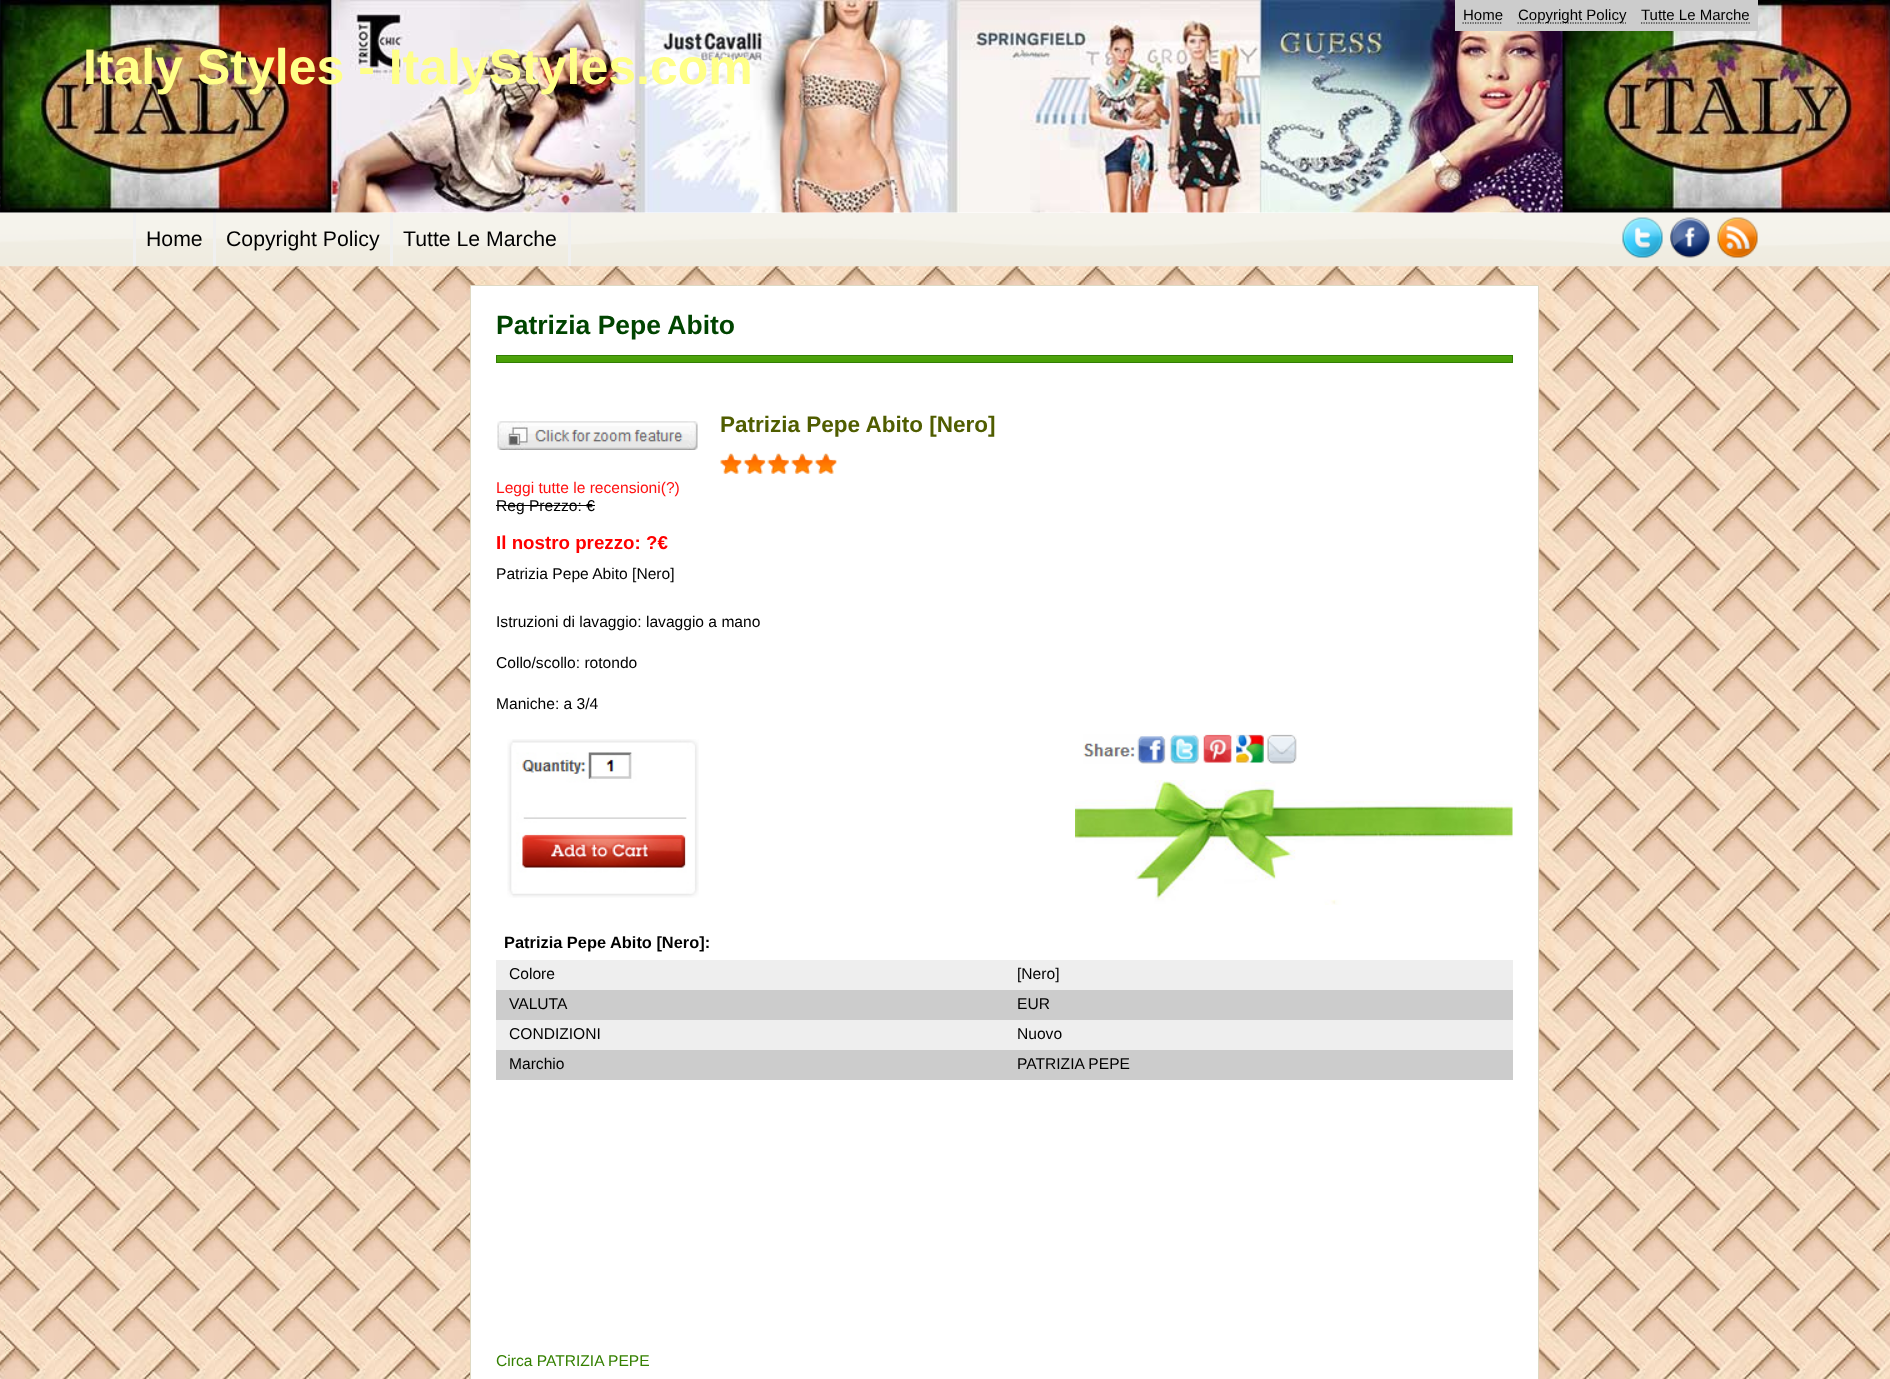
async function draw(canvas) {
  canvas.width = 1890;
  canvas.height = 1379;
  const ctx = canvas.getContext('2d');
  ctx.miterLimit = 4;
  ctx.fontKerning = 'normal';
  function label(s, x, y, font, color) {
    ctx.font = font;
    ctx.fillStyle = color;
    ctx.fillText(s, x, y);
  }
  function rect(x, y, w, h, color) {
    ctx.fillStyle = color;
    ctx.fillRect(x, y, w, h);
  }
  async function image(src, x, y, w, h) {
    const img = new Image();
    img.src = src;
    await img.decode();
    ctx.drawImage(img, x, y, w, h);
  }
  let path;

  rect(0, 0, 1890, 1379, '#fff');
  await image('assets/img1.png', 0, 266, 1890, 1113);
  await image('assets/img2.png', 0, 0, 1890, 213);
  rect(1455, 0, 303, 31, '#ccc');
  path = new Path2D('M1462.5 23H1502.5');
  ctx.strokeStyle = '#000';
  ctx.lineWidth = 1.2;
  ctx.setLineDash([1.25, 1.25]);
  ctx.stroke(path);
  label('Home', 1463, 20, '15px Liberation Sans', '#000');
  path = new Path2D('M1517.5 23H1626');
  ctx.stroke(path);
  label('Copyright Policy', 1518, 20, '15px Liberation Sans', '#000');
  path = new Path2D('M1641 23H1750');
  ctx.stroke(path);
  label('Tutte Le Marche', 1641, 20, '15px Liberation Sans', '#000');
  label('Italy Styles - ItalyStyles.com', 83, 84, 'bold 50px Liberation Sans', '#ff8');
  await image('assets/img3.png', 0, 213, 1890, 54);
  rect(133, 213, 3, 53, '#f0f0f0');
  rect(213, 213, 3, 53, '#f0f0f0');
  label('Home', 146, 246, '21.25px Liberation Sans', '#000');
  rect(390, 213, 3, 53, '#f0f0f0');
  label('Copyright Policy', 226, 246, '21.25px Liberation Sans', '#000');
  rect(568, 213, 3, 53, '#f0f0f0');
  label('Tutte Le Marche', 403, 246, '21.25px Liberation Sans', '#000');
  await image('assets/img4.png', 1622, 217, 41, 41);
  await image('assets/img5.png', 1670, 217, 40, 41);
  await image('assets/img6.png', 1717, 217, 41, 41);
  ctx.fillStyle = '#fff';
  ctx.beginPath();
  ctx.rect(470.5, 285.5, 1068, 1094);
  ctx.fill();
  ctx.strokeStyle = '#dfd9c3';
  ctx.lineWidth = 1;
  ctx.setLineDash([]);
  ctx.stroke();
  label('Patrizia Pepe Abito', 496, 334, 'bold 26.5px Liberation Sans', '#040');
  await image('assets/img7.png', 497, 356, 1015, 6);
  ctx.strokeStyle = '#327e04';
  ctx.strokeRect(496.5, 355.5, 1016, 7);
  await image('assets/img8.png', 497, 421, 201, 29);
  label('Patrizia Pepe Abito [Nero]', 720, 432, 'bold 22.5px Liberation Sans', '#505d00');
  await image('assets/img9.png', 720, 453, 117, 21);
  label('Leggi tutte le recensioni(?)', 496, 493, '15.6px Liberation Sans', '#f11');
  label('Reg Prezzo: €', 496, 511, '15.6px Liberation Sans', '#000');
  rect(496, 505, 99, 1, '#000');
  label('Il nostro prezzo: ?€', 496, 549, 'bold 18.75px Liberation Sans', '#f00');
  label('Patrizia Pepe Abito [Nero]', 496, 579, '15.6px Liberation Sans', '#000');
  label('Istruzioni di lavaggio: lavaggio a mano', 496, 627, '15.6px Liberation Sans', '#000');
  label('Collo/scollo: rotondo', 496, 668, '15.6px Liberation Sans', '#000');
  label('Maniche: a 3/4', 496, 709, '15.6px Liberation Sans', '#000');
  await image('assets/img10.png', 507, 739, 192, 159);
  await image('assets/img11.png', 1083, 734, 214, 30);
  await image('assets/img12.png', 1075, 780, 438, 125);
  label('Patrizia Pepe Abito [Nero]:', 504, 948, 'bold 16.4px Liberation Sans', '#000');
  rect(496, 990, 1017, 90, '#ccc');
  rect(496, 960, 1017, 30, '#eee');
  label('Colore', 509, 979, '15.6px Liberation Sans', '#000');
  label('[Nero]', 1017, 979, '15.6px Liberation Sans', '#000');
  label('VALUTA', 509, 1009, '15.6px Liberation Sans', '#000');
  label('EUR', 1017, 1009, '15.6px Liberation Sans', '#000');
  rect(496, 1020, 1017, 30, '#eee');
  label('CONDIZIONI', 509, 1039, '15.6px Liberation Sans', '#000');
  label('Nuovo', 1017, 1039, '15.6px Liberation Sans', '#000');
  label('Marchio', 509, 1069, '15.6px Liberation Sans', '#000');
  label('PATRIZIA PEPE', 1017, 1069, '15.6px Liberation Sans', '#000');
  label('Circa PATRIZIA PEPE', 496, 1366, '15.6px Liberation Sans', '#348000');
}

draw(document.querySelector('canvas'));
